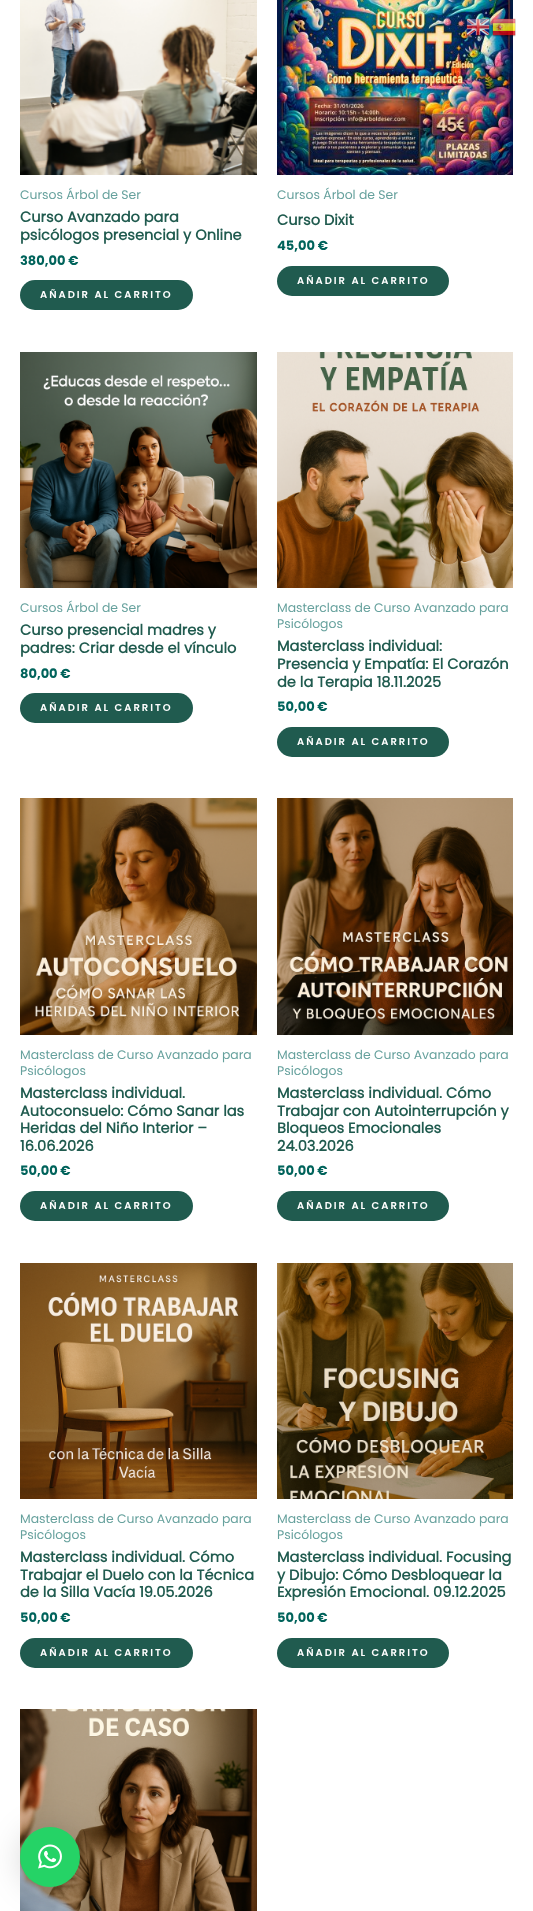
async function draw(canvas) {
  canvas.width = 533;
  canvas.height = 1911;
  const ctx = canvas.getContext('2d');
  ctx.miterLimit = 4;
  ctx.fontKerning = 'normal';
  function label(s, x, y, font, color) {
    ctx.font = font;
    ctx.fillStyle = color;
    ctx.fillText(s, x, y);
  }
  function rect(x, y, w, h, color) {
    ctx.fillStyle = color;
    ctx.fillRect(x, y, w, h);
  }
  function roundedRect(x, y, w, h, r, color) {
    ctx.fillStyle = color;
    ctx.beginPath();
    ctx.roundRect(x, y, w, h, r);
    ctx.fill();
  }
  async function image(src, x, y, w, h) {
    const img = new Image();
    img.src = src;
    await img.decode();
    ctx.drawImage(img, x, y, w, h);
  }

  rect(0, 0, 533, 1911, '#fff');
  await image('assets/img4.png', 277, 0, 236, 175);
  await image('assets/img1.png', 466, 18, 24, 19);
  await image('assets/img2.png', 492, 18, 24, 19);
  await image('assets/img3.png', 20, 0, 237, 175);
  label('Cursos Árbol de Ser', 20, 199, '12.4px Poppins', '#66a19d');
  label('Curso Avanzado para', 20, 222, 'bold 14.6px Poppins', '#205b4f');
  label('psicólogos presencial y Online', 20, 240, 'bold 14.6px Poppins', '#205b4f');
  label('380,00 €', 20, 265, 'bold 13px "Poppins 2"', '#00635b');
  roundedRect(20, 280, 173, 30, 15, '#205b4f');
  ctx.letterSpacing = '2px';
  label('AÑADIR AL CARRITO', 40, 298, '600 10px Poppins', '#fff');
  ctx.letterSpacing = '0px';
  label('Cursos Árbol de Ser', 277, 199, '12.4px Poppins', '#66a19d');
  label('Curso Dixit', 277, 225, 'bold 14.6px Poppins', '#205b4f');
  label('45,00 €', 277, 250, 'bold 13px "Poppins 2"', '#00635b');
  roundedRect(277, 266, 172, 30, 15, '#205b4f');
  ctx.letterSpacing = '2px';
  label('AÑADIR AL CARRITO', 297, 284, '600 10px Poppins', '#fff');
  await image('assets/img5.png', 20, 352, 237, 236);
  ctx.letterSpacing = '0px';
  label('Cursos Árbol de Ser', 20, 612, '12.4px Poppins', '#66a19d');
  label('Curso presencial madres y', 20, 635, 'bold 14.6px Poppins', '#205b4f');
  label('padres: Criar desde el vínculo', 20, 653, 'bold 14.6px Poppins', '#205b4f');
  label('80,00 €', 20, 678, 'bold 13px "Poppins 2"', '#00635b');
  roundedRect(20, 693, 173, 30, 15, '#205b4f');
  ctx.letterSpacing = '2px';
  label('AÑADIR AL CARRITO', 40, 711, '600 10px Poppins', '#fff');
  await image('assets/img6.png', 277, 352, 236, 236);
  ctx.letterSpacing = '0px';
  label('Masterclass de Curso Avanzado para', 277, 612, '12.4px Poppins', '#66a19d');
  label('Psicólogos', 277, 628, '12.4px Poppins', '#66a19d');
  label('Masterclass individual:', 277, 651, 'bold 14.6px Poppins', '#205b4f');
  label('Presencia y Empatía: El Corazón', 277, 669, 'bold 14.6px Poppins', '#205b4f');
  label('de la Terapia 18.11.2025', 277, 687, 'bold 14.6px Poppins', '#205b4f');
  label('50,00 €', 277, 711, 'bold 13px "Poppins 2"', '#00635b');
  roundedRect(277, 727, 172, 30, 15, '#205b4f');
  ctx.letterSpacing = '2px';
  label('AÑADIR AL CARRITO', 297, 745, '600 10px Poppins', '#fff');
  await image('assets/img7.png', 20, 798, 237, 237);
  ctx.letterSpacing = '0px';
  label('Masterclass de Curso Avanzado para', 20, 1059, '12.4px Poppins', '#66a19d');
  label('Psicólogos', 20, 1075, '12.4px Poppins', '#66a19d');
  label('Masterclass individual.', 20, 1098, 'bold 14.6px Poppins', '#205b4f');
  label('Autoconsuelo: Cómo Sanar las', 20, 1116, 'bold 14.6px Poppins', '#205b4f');
  label('Heridas del Niño Interior –', 20, 1133, 'bold 14.6px Poppins', '#205b4f');
  label('16.06.2026', 20, 1151, 'bold 14.6px Poppins', '#205b4f');
  label('50,00 €', 20, 1175, 'bold 13px "Poppins 2"', '#00635b');
  roundedRect(20, 1191, 173, 30, 15, '#205b4f');
  ctx.letterSpacing = '2px';
  label('AÑADIR AL CARRITO', 40, 1209, '600 10px Poppins', '#fff');
  await image('assets/img8.png', 277, 798, 236, 237);
  ctx.letterSpacing = '0px';
  label('Masterclass de Curso Avanzado para', 277, 1059, '12.4px Poppins', '#66a19d');
  label('Psicólogos', 277, 1075, '12.4px Poppins', '#66a19d');
  label('Masterclass individual. Cómo', 277, 1098, 'bold 14.6px Poppins', '#205b4f');
  label('Trabajar con Autointerrupción y', 277, 1116, 'bold 14.6px Poppins', '#205b4f');
  label('Bloqueos Emocionales', 277, 1133, 'bold 14.6px Poppins', '#205b4f');
  label('24.03.2026', 277, 1151, 'bold 14.6px Poppins', '#205b4f');
  label('50,00 €', 277, 1175, 'bold 13px "Poppins 2"', '#00635b');
  roundedRect(277, 1191, 172, 30, 15, '#205b4f');
  ctx.letterSpacing = '2px';
  label('AÑADIR AL CARRITO', 297, 1209, '600 10px Poppins', '#fff');
  await image('assets/img9.png', 20, 1263, 237, 236);
  ctx.letterSpacing = '0px';
  label('Masterclass de Curso Avanzado para', 20, 1523, '12.4px Poppins', '#66a19d');
  label('Psicólogos', 20, 1539, '12.4px Poppins', '#66a19d');
  label('Masterclass individual. Cómo', 20, 1562, 'bold 14.6px Poppins', '#205b4f');
  label('Trabajar el Duelo con la Técnica', 20, 1580, 'bold 14.6px Poppins', '#205b4f');
  label('de la Silla Vacía 19.05.2026', 20, 1597, 'bold 14.6px Poppins', '#205b4f');
  label('50,00 €', 20, 1622, 'bold 13px "Poppins 2"', '#00635b');
  roundedRect(20, 1638, 173, 30, 15, '#205b4f');
  ctx.letterSpacing = '2px';
  label('AÑADIR AL CARRITO', 40, 1656, '600 10px Poppins', '#fff');
  await image('assets/img10.png', 277, 1263, 236, 236);
  ctx.letterSpacing = '0px';
  label('Masterclass de Curso Avanzado para', 277, 1523, '12.4px Poppins', '#66a19d');
  label('Psicólogos', 277, 1539, '12.4px Poppins', '#66a19d');
  label('Masterclass individual. Focusing', 277, 1562, 'bold 14.6px Poppins', '#205b4f');
  label('y Dibujo: Cómo Desbloquear la', 277, 1580, 'bold 14.6px Poppins', '#205b4f');
  label('Expresión Emocional. 09.12.2025', 277, 1597, 'bold 14.6px Poppins', '#205b4f');
  label('50,00 €', 277, 1622, 'bold 13px "Poppins 2"', '#00635b');
  roundedRect(277, 1638, 172, 30, 15, '#205b4f');
  ctx.letterSpacing = '2px';
  label('AÑADIR AL CARRITO', 297, 1656, '600 10px Poppins', '#fff');
  await image('assets/img11.png', 20, 1709, 237, 202);
  ctx.fillStyle = '#00000029';
  ctx.filter = 'blur(16px)';
  ctx.beginPath();
  ctx.roundRect(20, 1829, 60, 60, 30);
  ctx.fill();
  ctx.filter = 'none';
  ctx.fillStyle = '#25d366';
  ctx.beginPath();
  ctx.arc(50, 1857, 30, 0, 2 * Math.PI);
  ctx.fill();
  await image('assets/img12.png', 38, 1844, 24, 25);
}

draw(document.querySelector('canvas'));
